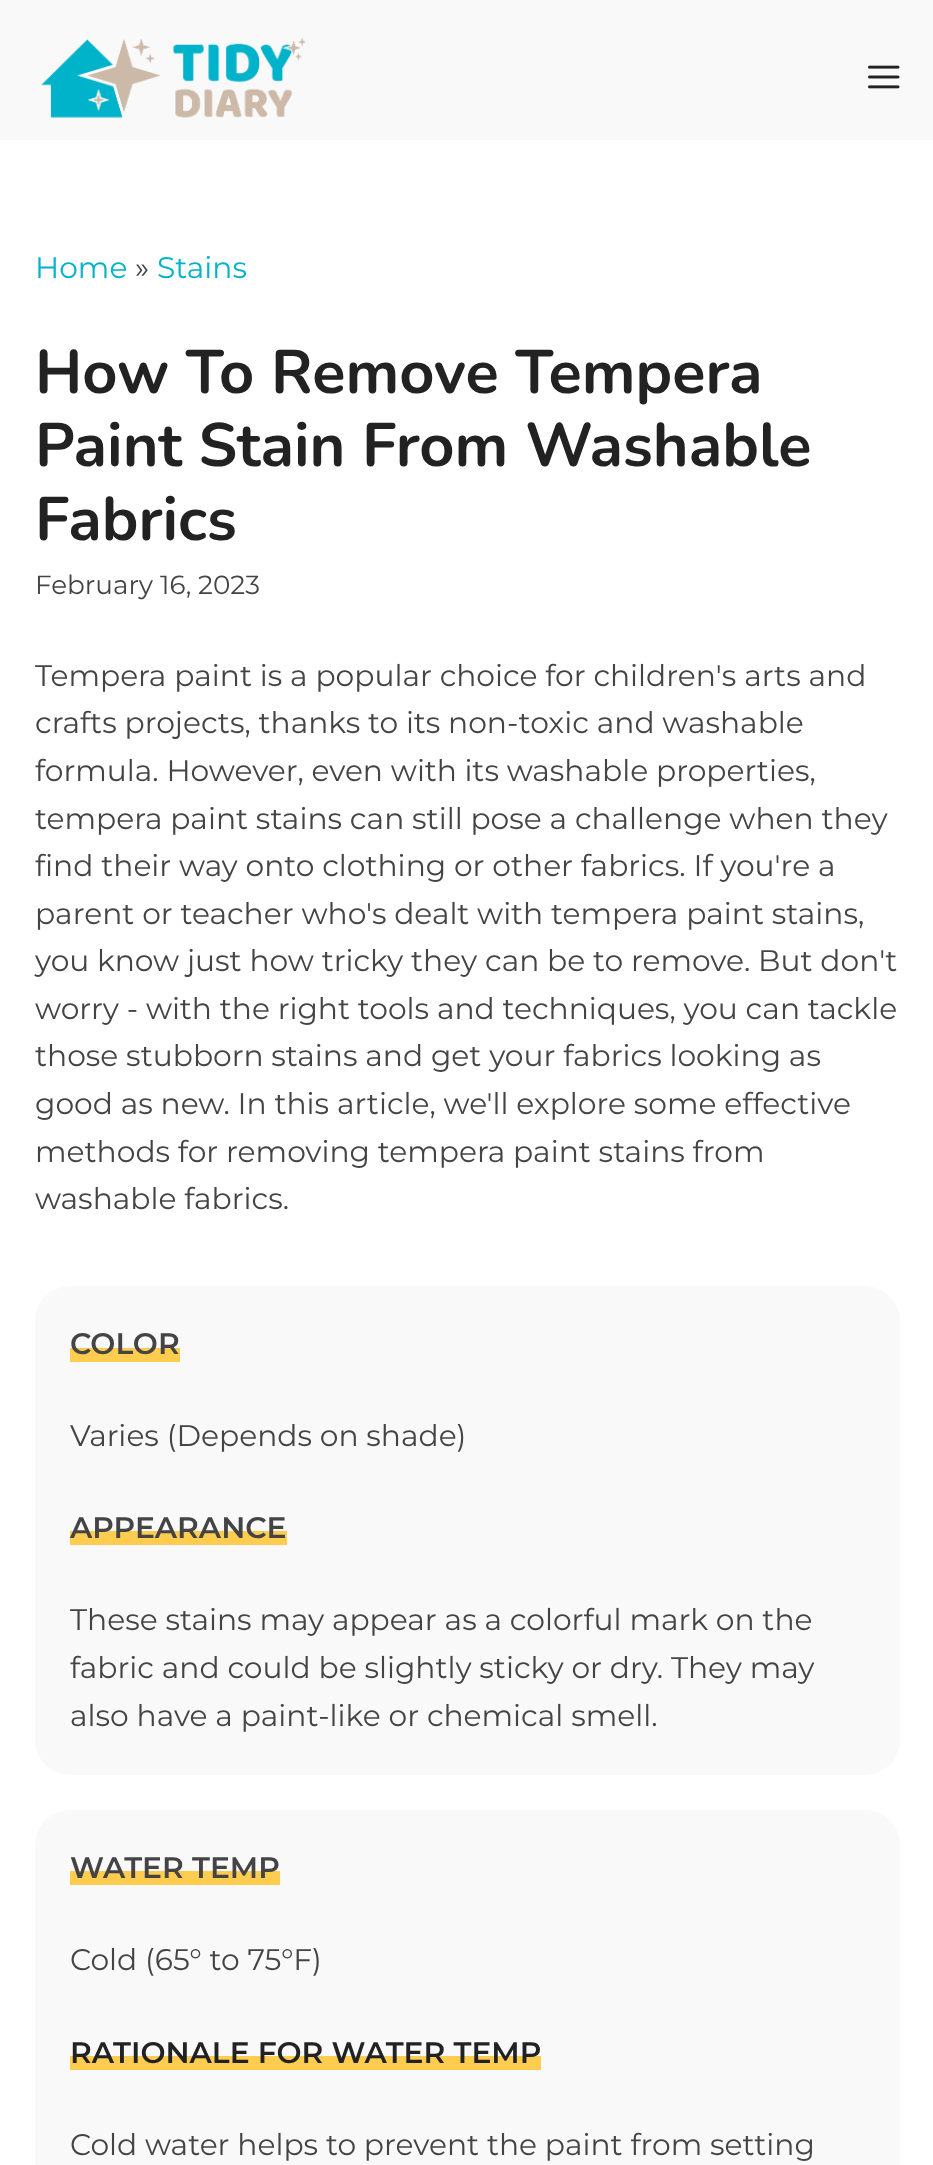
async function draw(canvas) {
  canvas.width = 933;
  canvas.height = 2165;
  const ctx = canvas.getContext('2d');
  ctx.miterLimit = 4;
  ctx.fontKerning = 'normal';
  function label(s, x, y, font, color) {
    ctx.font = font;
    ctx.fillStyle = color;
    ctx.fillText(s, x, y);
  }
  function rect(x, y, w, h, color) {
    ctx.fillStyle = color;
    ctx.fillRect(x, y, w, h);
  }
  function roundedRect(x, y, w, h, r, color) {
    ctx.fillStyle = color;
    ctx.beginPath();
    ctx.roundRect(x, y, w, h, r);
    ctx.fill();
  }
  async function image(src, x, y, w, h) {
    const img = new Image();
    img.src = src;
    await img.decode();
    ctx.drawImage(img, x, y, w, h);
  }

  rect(0, 0, 933, 2165, '#fff');
  rect(0, 0, 933, 140, '#f9f9f9');
  await image('assets/img1.png', 41, 38, 265, 80);
  await image('assets/img2.png', 868, 65, 32, 24);
  label('Home', 35, 278, '29.75px Montserrat', '#00b2ca');
  label('»', 135, 278, '29.75px Montserrat', '#444');
  label('Stains', 157, 278, '29.75px Montserrat', '#00b2ca');
  label('How To Remove Tempera', 35, 393, 'bold 61.25px Nunito', '#222');
  label('Paint Stain From Washable', 35, 466, 'bold 61.25px Nunito', '#222');
  label('Fabrics', 35, 540, 'bold 61.25px Nunito', '#222');
  label('February 16, 2023', 35, 594, '26.25px Montserrat', '#444');
  label('Tempera paint is a popular choice for children\'s arts and', 35, 686, '29.75px Montserrat', '#444');
  label('crafts projects, thanks to its non-toxic and washable', 35, 733, '29.75px Montserrat', '#444');
  label('formula. However, even with its washable properties,', 35, 781, '29.75px Montserrat', '#444');
  label('tempera paint stains can still pose a challenge when they', 35, 829, '29.75px Montserrat', '#444');
  label('find their way onto clothing or other fabrics. If you\'re a', 35, 876, '29.75px Montserrat', '#444');
  label('parent or teacher who\'s dealt with tempera paint stains,', 35, 924, '29.75px Montserrat', '#444');
  label('you know just how tricky they can be to remove. But don\'t', 35, 971, '29.75px Montserrat', '#444');
  label('worry - with the right tools and techniques, you can tackle', 35, 1019, '29.75px Montserrat', '#444');
  label('those stubborn stains and get your fabrics looking as', 35, 1066, '29.75px Montserrat', '#444');
  label('good as new. In this article, we\'ll explore some effective', 35, 1114, '29.75px Montserrat', '#444');
  label('methods for removing tempera paint stains from', 35, 1162, '29.75px Montserrat', '#444');
  label('washable fabrics.', 35, 1209, '29.75px Montserrat', '#444');
  roundedRect(35, 1286, 865, 489, 35, '#f9f9f9');
  rect(70, 1348, 110, 14, '#fecd50');
  label('COLOR', 70, 1354, '600 29.75px Montserrat', '#444');
  label('Varies (Depends on shade)', 70, 1446, '29.75px Montserrat', '#444');
  rect(70, 1531, 217, 14, '#fecd50');
  label('APPEARANCE', 70, 1538, '600 29.75px Montserrat', '#444');
  label('These stains may appear as a colorful mark on the', 70, 1630, '29.75px Montserrat', '#444');
  label('fabric and could be slightly sticky or dry. They may', 70, 1678, '29.75px Montserrat', '#444');
  label('also have a paint-like or chemical smell.', 70, 1726, '29.75px Montserrat', '#444');
  roundedRect(35, 1810, 865, 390, 35, '#f9f9f9');
  rect(70, 1871, 210, 14, '#fecd50');
  label('WATER TEMP', 70, 1878, '600 29.75px Montserrat', '#444');
  label('Cold (65° to 75°F)', 70, 1970, '29.75px Montserrat', '#444');
  rect(70, 2056, 471, 14, '#fecd50');
  label('RATIONALE FOR WATER TEMP', 70, 2063, '600 29.75px Montserrat', '#222');
  label('Cold water helps to prevent the paint from setting', 70, 2155, '29.75px Montserrat', '#444');
}

draw(document.querySelector('canvas'));
